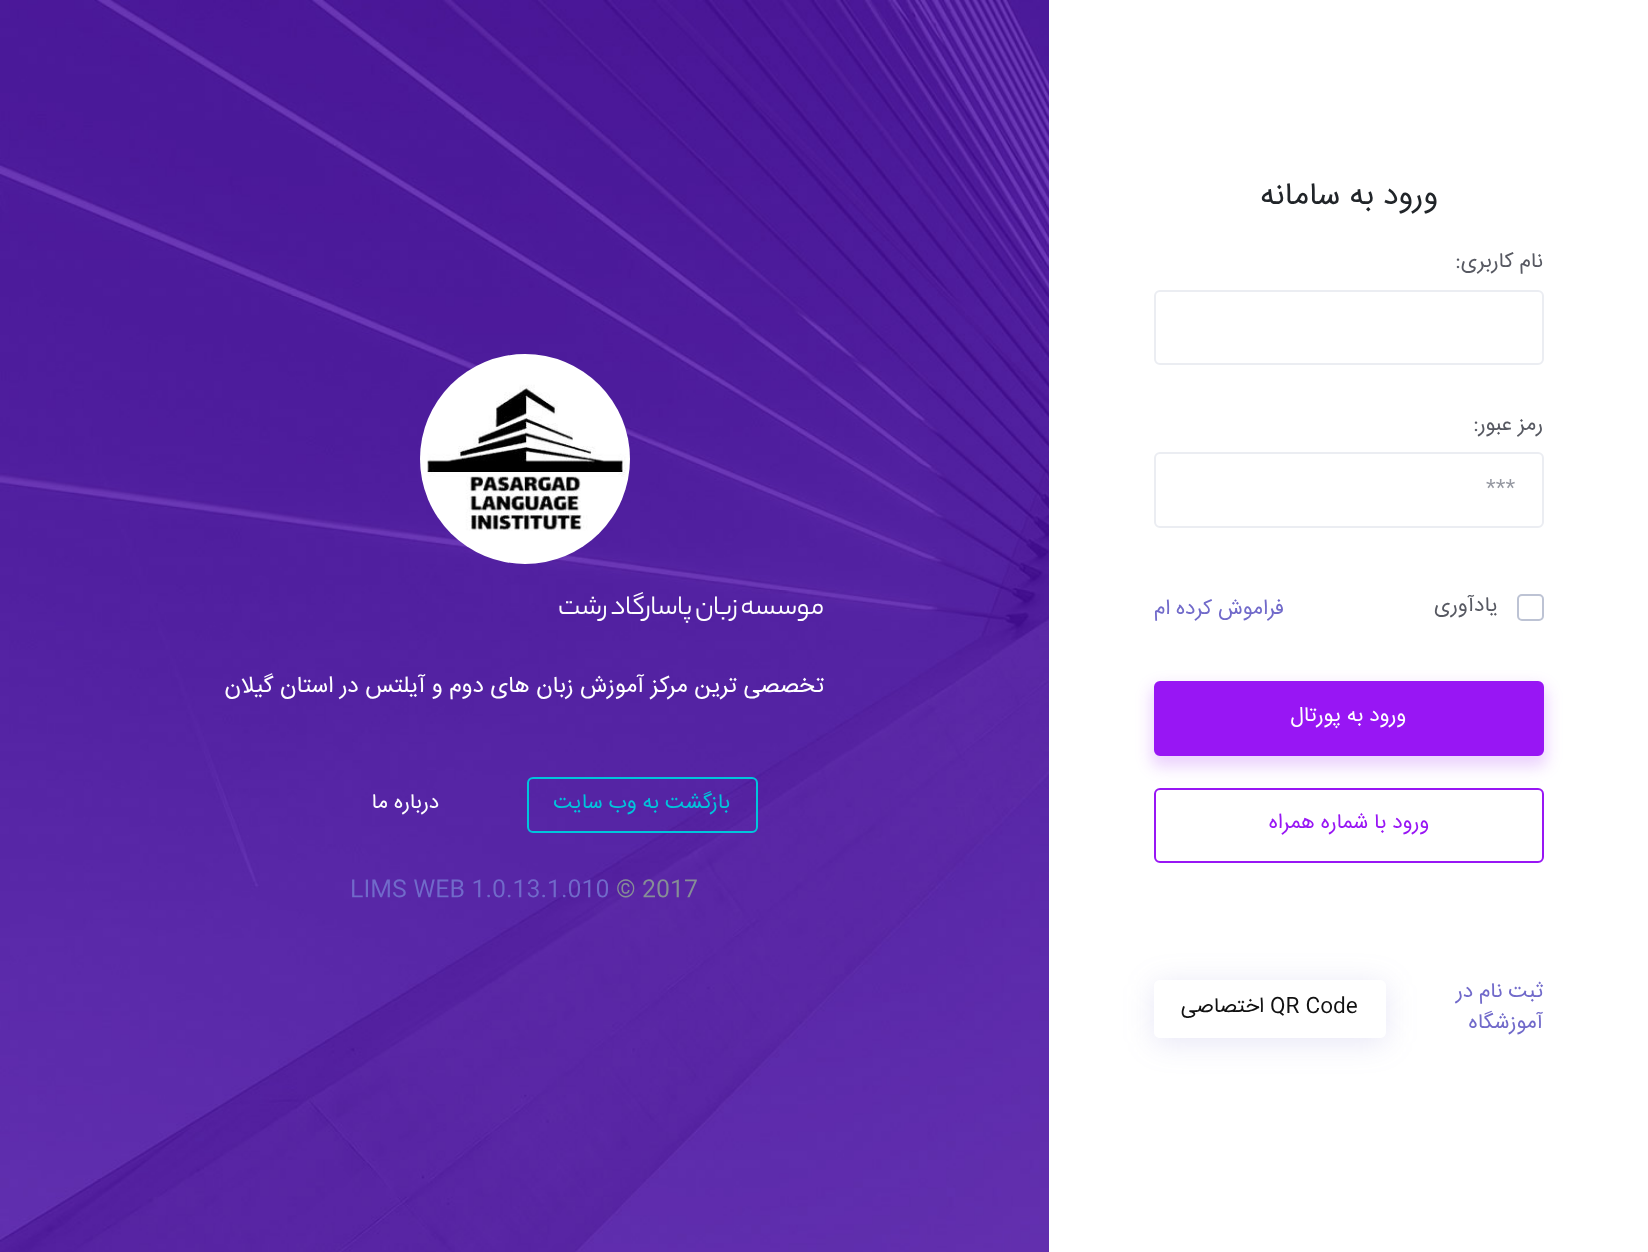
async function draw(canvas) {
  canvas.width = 1648;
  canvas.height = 1252;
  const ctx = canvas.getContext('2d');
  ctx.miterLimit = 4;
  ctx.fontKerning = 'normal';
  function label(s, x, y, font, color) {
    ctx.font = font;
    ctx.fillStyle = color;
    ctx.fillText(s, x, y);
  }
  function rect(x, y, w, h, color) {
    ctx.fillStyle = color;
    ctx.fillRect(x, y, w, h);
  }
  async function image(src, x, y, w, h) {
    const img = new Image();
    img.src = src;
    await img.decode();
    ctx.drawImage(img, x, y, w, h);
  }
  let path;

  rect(0, 0, 1648, 1252, '#fff');
  ctx.direction = 'rtl';
  label('ورود به سامانه', 1438, 204, '31.5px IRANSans', '#212529');
  label('نام کاربری:', 1543, 267, '21px IRANSans', '#575962');
  ctx.beginPath();
  ctx.roundRect(1155, 291, 388, 73, 5);
  ctx.strokeStyle = '#ebedf2';
  ctx.lineWidth = 2;
  ctx.stroke();
  label('رمز عبور:', 1543, 430, '21px IRANSans', '#575962');
  ctx.beginPath();
  ctx.roundRect(1155, 453, 388, 74, 5);
  ctx.stroke();
  ctx.direction = 'ltr';
  label('***', 1486, 494, '21px IRANSans', '#9699a2');
  ctx.beginPath();
  ctx.roundRect(1518, 595, 25, 25, 4);
  ctx.strokeStyle = '#bdc3d4';
  ctx.stroke();
  ctx.direction = 'rtl';
  label('یادآوری', 1498, 611, '21px IRANSans', '#575962');
  label('فراموش کرده ام', 1284, 614, '21px IRANSans', '#716aca');
  ctx.fillStyle = '#9816f430';
  ctx.filter = 'blur(7.5px)';
  ctx.beginPath();
  ctx.roundRect(1151, 686, 396, 81, 9);
  ctx.fill();
  ctx.filter = 'none';
  ctx.fillStyle = '#9816f4';
  ctx.beginPath();
  ctx.roundRect(1155, 682, 388, 73, 5);
  ctx.fill();
  ctx.strokeStyle = '#9816f4';
  ctx.stroke();
  label('ورود به پورتال', 1406, 721, '21px IRANSans', '#fff');
  ctx.beginPath();
  ctx.roundRect(1155, 789, 388, 73, 5);
  ctx.stroke();
  label('ورود با شماره همراه', 1429, 828, '21px IRANSans', '#9816f4');
  label('ثبت نام در', 1543, 997, '21px IRANSans', '#716aca');
  label('آموزشگاه', 1543, 1028, '21px IRANSans', '#716aca');
  ctx.save();
  path = new Path2D('M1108 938H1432V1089H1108ZM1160 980H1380C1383.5 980 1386 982.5 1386 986V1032C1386 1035.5 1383.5 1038 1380 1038H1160C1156.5 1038 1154 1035.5 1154 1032V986C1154 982.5 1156.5 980 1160 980Z');
  ctx.clip(path, 'evenodd');
  ctx.fillStyle = '#716aca2b';
  ctx.filter = 'blur(15px)';
  ctx.beginPath();
  ctx.roundRect(1154, 984, 232, 59, 6);
  ctx.fill();
  ctx.filter = 'none';
  ctx.restore();
  ctx.direction = 'ltr';
  label('QR Code', 1270, 1012, '21px IRANSans', '#111');
  ctx.direction = 'rtl';
  label('اختصاصی', 1264, 1012, '21px IRANSans', '#111');
  await image('assets/img1.png', 0, 0, 1049, 1252);
  await image('assets/img2.png', 420, 354, 210, 210);
  label('موسسه زبان پاسارگاد رشت', 824, 614, '31.5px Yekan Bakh', '#fff');
  label('تخصصی ترین مرکز آموزش زبان های دوم و آیلتس در استان گیلان', 824, 692, '23.1px IRANSans', '#fff');
  ctx.beginPath();
  ctx.roundRect(528, 778, 229, 54, 5);
  ctx.strokeStyle = '#00c5dc';
  ctx.stroke();
  label('بازگشت به وب سایت', 730, 808, '21px IRANSans', '#00c5dc');
  label('درباره ما', 439, 808, '21px IRANSans', '#fff');
  ctx.direction = 'ltr';
  label('© 2017', 616, 896, '23.1px IRANSans', '#868e96');
  label('LIMS WEB 1.0.13.1.010', 350, 896, '23.1px IRANSans', '#716aca');
}

draw(document.querySelector('canvas'));
